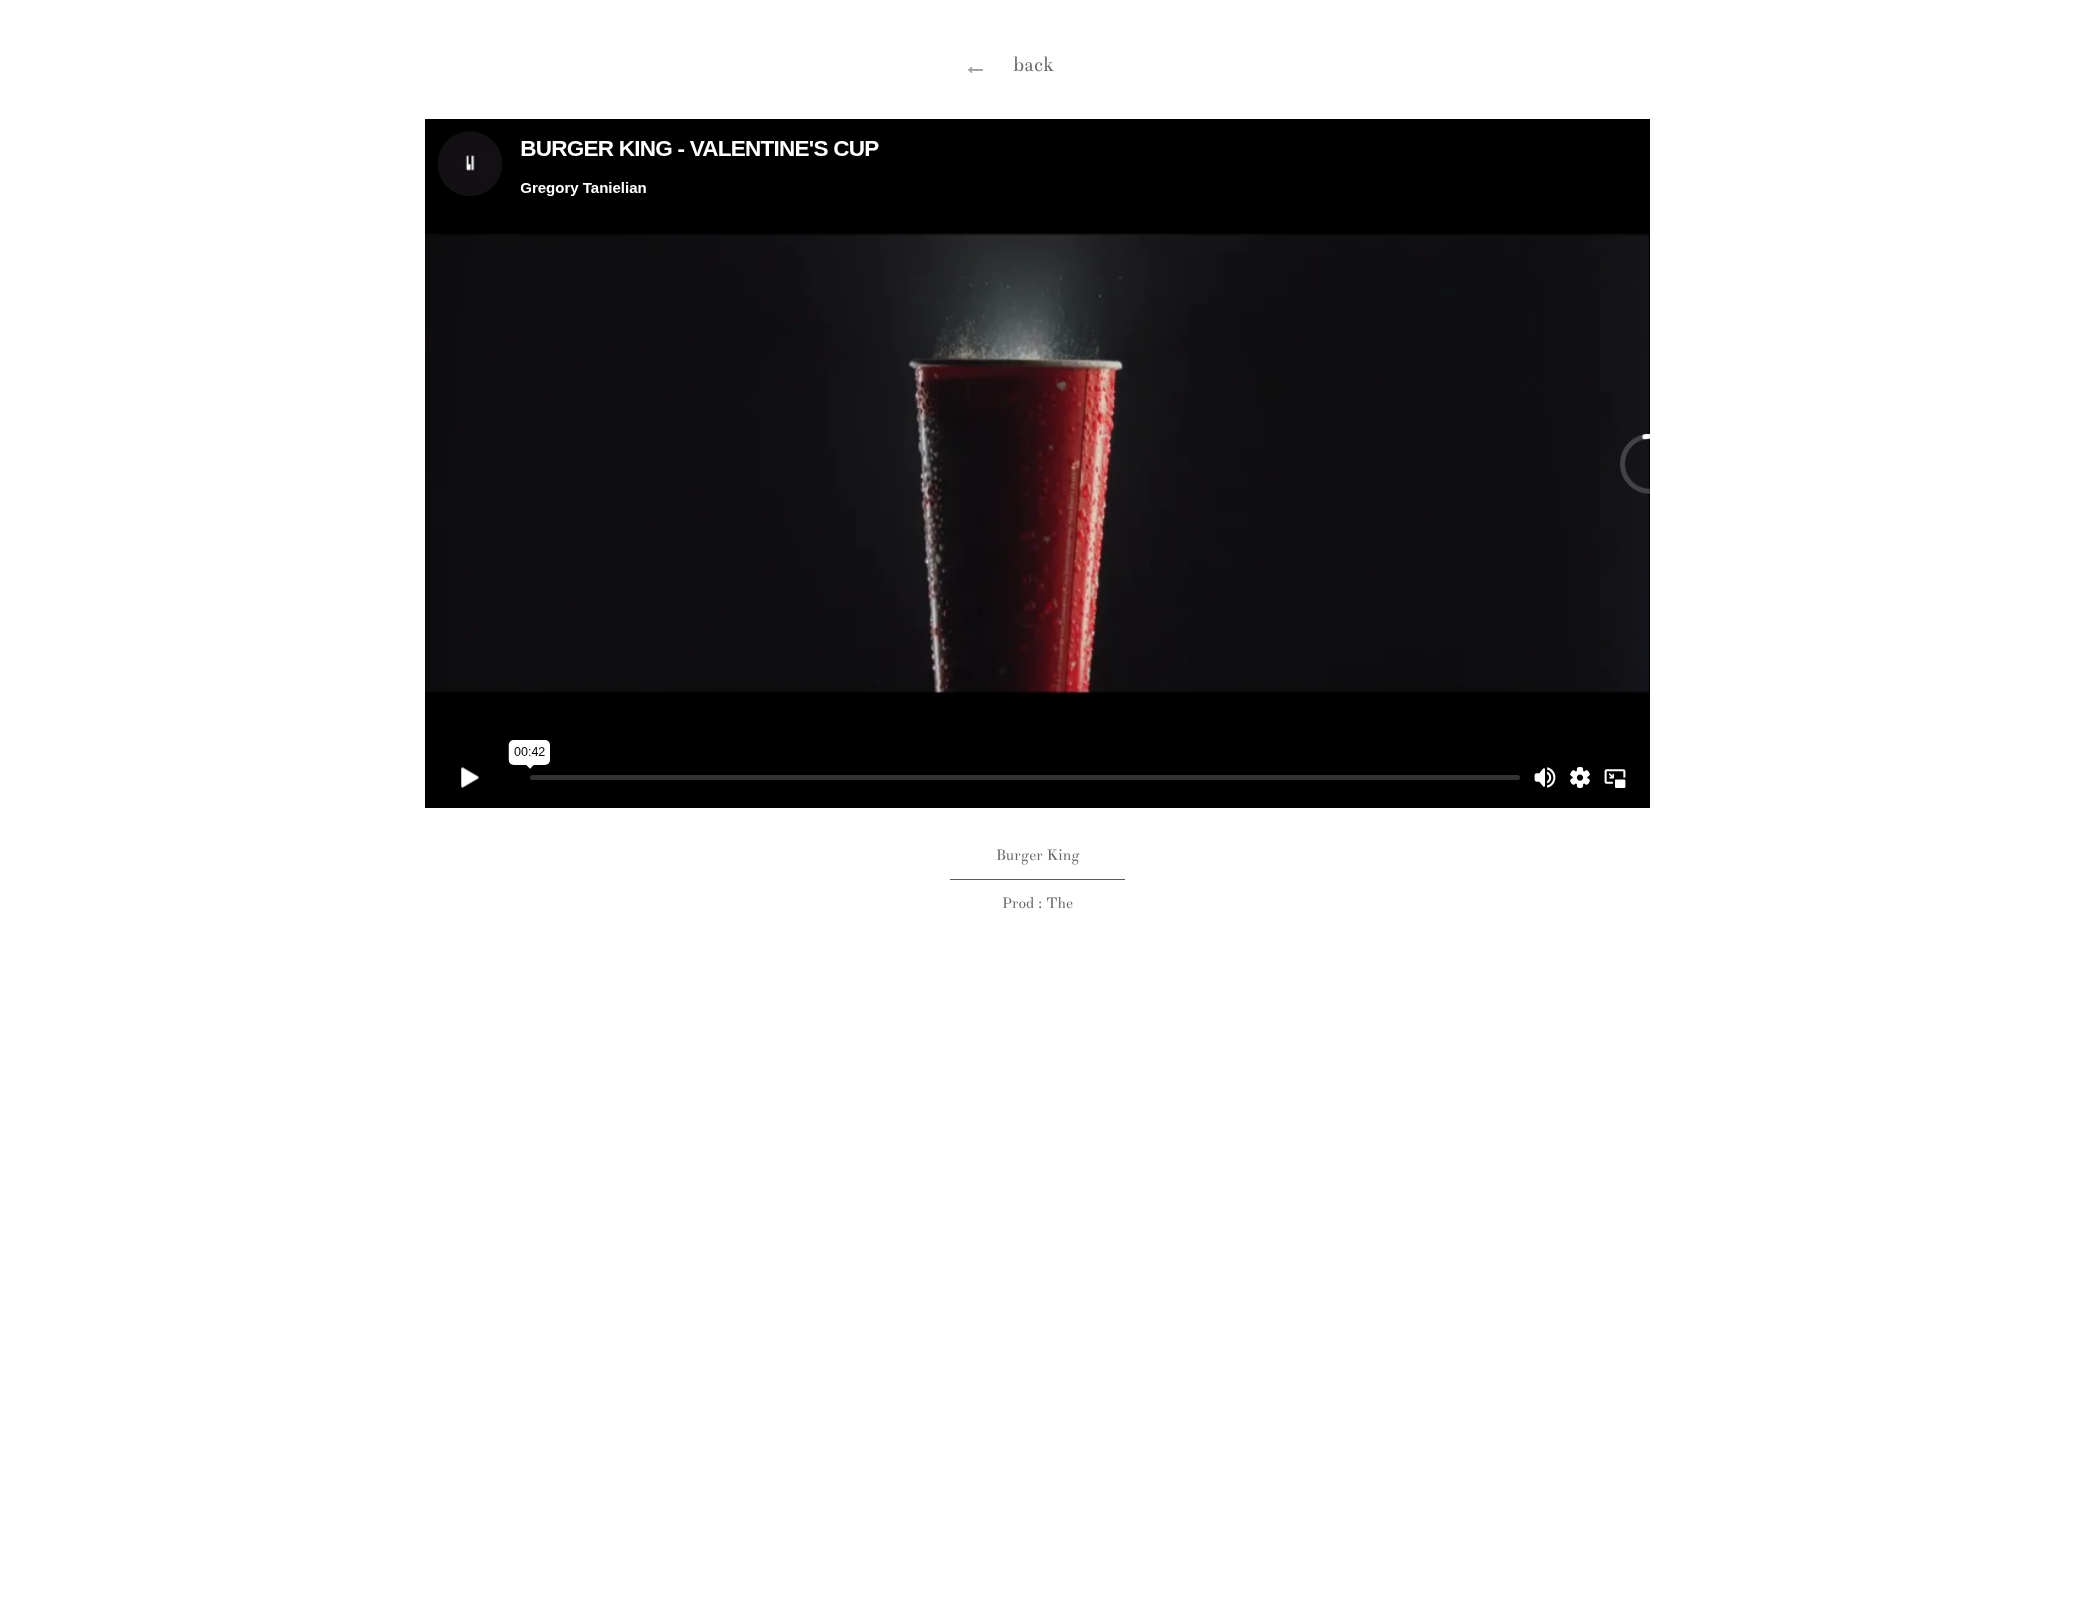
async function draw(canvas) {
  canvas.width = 2075;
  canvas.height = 1612;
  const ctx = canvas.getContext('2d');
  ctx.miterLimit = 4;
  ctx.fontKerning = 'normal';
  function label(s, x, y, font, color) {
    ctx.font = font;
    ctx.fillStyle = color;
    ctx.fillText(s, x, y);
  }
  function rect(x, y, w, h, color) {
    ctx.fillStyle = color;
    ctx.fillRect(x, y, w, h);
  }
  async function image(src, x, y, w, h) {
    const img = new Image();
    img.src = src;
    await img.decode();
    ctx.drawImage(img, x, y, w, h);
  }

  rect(0, 0, 2075, 1612, '#fff');
  label('←', 963, 74, 'bold 25px Liberation Sans', '#54595f');
  label('←', 963, 74, 'bold 25px Liberation Sans', '#a7a9ac');
  label('back', 1013, 71, '20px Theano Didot', '#666');
  rect(425, 119, 1225, 689, '#000');
  await image('assets/img1.png', 425, 131, 1225, 657);
  label('Burger King', 996, 860, '15px Theano Didot', '#666');
  rect(950, 879, 175, 1, '#54595f');
  label('Prod : The', 1002, 908, '15px Theano Didot', '#666');
}

draw(document.querySelector('canvas'));
